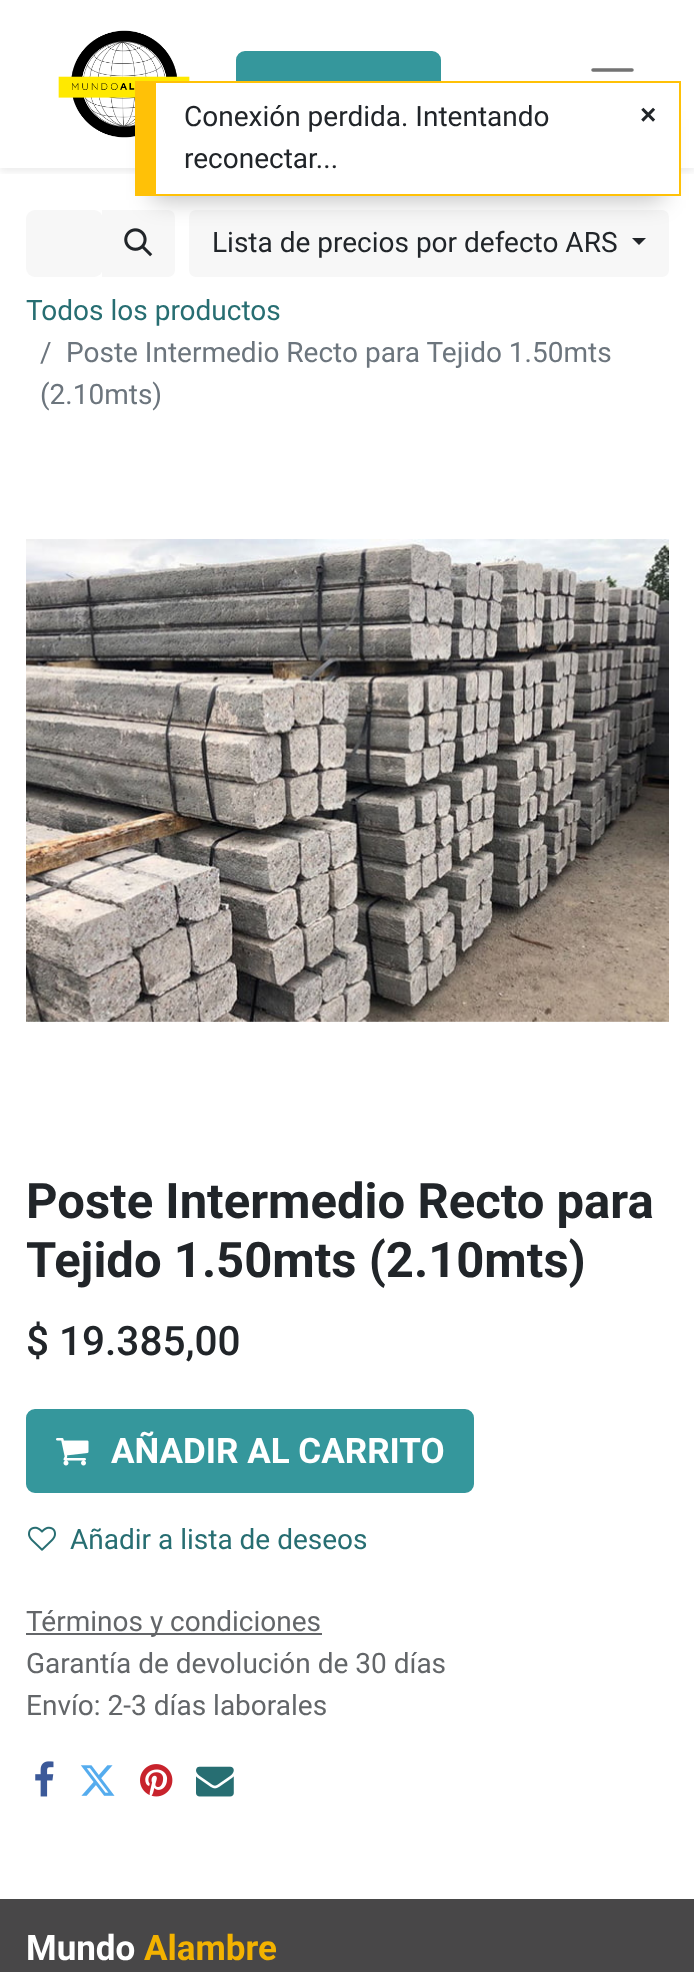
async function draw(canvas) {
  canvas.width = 694;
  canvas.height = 1972;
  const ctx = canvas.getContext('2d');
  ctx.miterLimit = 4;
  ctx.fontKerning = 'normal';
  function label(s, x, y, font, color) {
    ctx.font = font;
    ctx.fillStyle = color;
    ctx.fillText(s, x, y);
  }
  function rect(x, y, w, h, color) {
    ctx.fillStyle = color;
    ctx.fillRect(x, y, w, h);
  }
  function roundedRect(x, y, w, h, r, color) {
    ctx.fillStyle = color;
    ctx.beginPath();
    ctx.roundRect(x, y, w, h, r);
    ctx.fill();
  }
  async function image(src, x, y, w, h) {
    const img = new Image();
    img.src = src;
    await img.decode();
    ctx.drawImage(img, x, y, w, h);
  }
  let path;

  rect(0, 0, 694, 1972, '#fff');
  ctx.save();
  ctx.beginPath();
  ctx.rect(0, 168, 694, 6);
  ctx.clip();
  ctx.fillStyle = '#00000012';
  ctx.filter = 'blur(3.5px)';
  ctx.beginPath();
  ctx.rect(0, 4, 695, 168);
  ctx.fill();
  ctx.filter = 'none';
  ctx.restore();
  await image('assets/img1.png', 58, 30, 132, 108);
  ctx.fillStyle = '#35979c';
  ctx.beginPath();
  ctx.roundRect(237, 52, 203, 64, 8);
  ctx.fill();
  ctx.strokeStyle = '#35979c';
  ctx.lineWidth = 2;
  ctx.stroke();
  path = new Path2D('M593 70H632M593 84H632M593 98H632');
  ctx.strokeStyle = '#737373';
  ctx.lineWidth = 3.5;
  ctx.lineCap = 'round';
  ctx.stroke(path);
  roundedRect(26, 210, 77, 67, 9, '#f7f7f7');
  ctx.beginPath();
  ctx.roundRect(102, 210, 73, 67, [0, 7, 7, 0]);
  ctx.fill();
  await image('assets/img2.png', 124, 228, 29, 29);
  roundedRect(189, 210, 480, 67, 7, '#f7f7f7');
  ctx.fillStyle = '#00000040';
  ctx.filter = 'blur(12px)';
  ctx.beginPath();
  ctx.rect(152, 119, 511, 81);
  ctx.fill();
  ctx.filter = 'none';
  rect(156, 83, 523, 111, '#fff');
  rect(156, 81, 525, 2, '#ffc107');
  rect(679, 81, 2, 115, '#ffc107');
  rect(156, 194, 525, 2, '#ffc107');
  rect(135, 81, 21, 115, '#ffc107');
  label('Conexión perdida. Intentando', 184, 126, '28px Roboto', '#212529');
  label('reconectar...', 184, 168, '28px Roboto', '#212529');
  label('×', 640, 124, 'bold 28px Liberation Sans', '#212529');
  label('Lista de precios por defecto ARS', 212, 252, '28px Roboto', '#212529');
  path = new Path2D('M632 238H646L639 245Z');
  ctx.fill(path);
  label('Todos los productos', 26, 320, '28px Roboto', '#276e72');
  label('/', 40, 362, '28px Roboto', '#6c757d');
  label('Poste Intermedio Recto para Tejido 1.50mts', 66, 362, '28px Roboto', '#6c757d');
  label('(2.10mts)', 40, 404, '28px Roboto', '#6c757d');
  await image('assets/img3.png', 26, 539, 643, 483);
  label('Poste Intermedio Recto para', 26, 1218, 'bold 49px Roboto', '#212529');
  label('Tejido 1.50mts (2.10mts)', 26, 1277, 'bold 49px Roboto', '#212529');
  label('$ 19.385,00', 26, 1355, '500 40.5px Roboto', '#212529');
  ctx.fillStyle = '#35979c';
  ctx.beginPath();
  ctx.roundRect(27, 1410, 446, 82, 8);
  ctx.fill();
  ctx.strokeStyle = '#35979c';
  ctx.lineWidth = 2;
  ctx.stroke();
  await image('assets/img4.png', 56, 1438, 33, 28);
  label('AÑADIR AL CARRITO', 111, 1463, 'bold 35px Roboto', '#fff');
  await image('assets/img5.png', 28, 1526, 28, 25);
  label('Añadir a lista de deseos', 70, 1549, '28px Roboto', '#276e72');
  rect(26, 1633, 296, 2, '#646669');
  label('Términos y condiciones', 26, 1631, '28px Roboto', '#636669');
  label('Garantía de devolución de 30 días', 26, 1673, '28px Roboto', '#636669');
  label('Envío: 2-3 días laborales', 26, 1715, '28px Roboto', '#636669');
  await image('assets/img6.png', 35, 1761, 19, 36);
  await image('assets/img7.png', 80, 1765, 35, 31);
  await image('assets/img8.png', 140, 1764, 33, 33);
  await image('assets/img9.png', 196, 1766, 38, 31);
  rect(0, 1899, 694, 73, '#484748');
  label('Mundo', 26, 1960, 'bold 35px Roboto', '#fff');
  label('Alambre', 144, 1960, 'bold 35px Roboto', '#f3b200');
}

draw(document.querySelector('canvas'));
